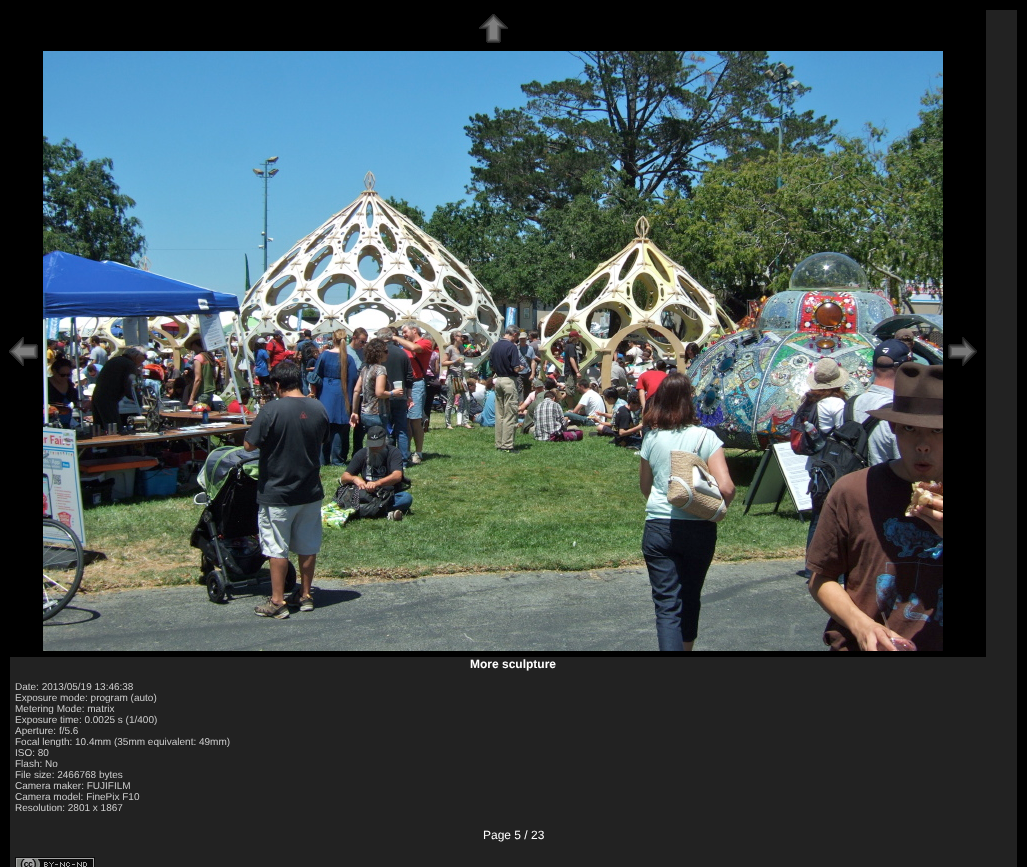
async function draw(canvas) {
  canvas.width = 1027;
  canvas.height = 867;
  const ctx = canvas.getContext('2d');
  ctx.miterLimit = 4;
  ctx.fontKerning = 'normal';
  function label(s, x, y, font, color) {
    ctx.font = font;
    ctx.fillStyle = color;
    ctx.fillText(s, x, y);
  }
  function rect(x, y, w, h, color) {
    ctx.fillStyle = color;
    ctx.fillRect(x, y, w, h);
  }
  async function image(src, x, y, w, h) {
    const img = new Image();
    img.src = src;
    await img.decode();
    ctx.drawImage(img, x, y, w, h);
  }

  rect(0, 0, 1027, 867, '#000');
  rect(10, 10, 1007, 857, '#222');
  rect(10, 10, 976, 647, '#000');
  await image('assets/img1.png', 479, 14, 29, 29);
  await image('assets/img2.png', 9, 337, 29, 29);
  await image('assets/img3.png', 43, 51, 900, 600);
  await image('assets/img4.png', 948, 337, 29, 29);
  label('More sculpture', 470, 668, 'bold 12px Liberation Sans', '#fff');
  label('Date: 2013/05/19 13:46:38', 15, 690, '10px Liberation Sans', '#ccc');
  label('Exposure mode: program (auto)', 15, 701, '10px Liberation Sans', '#ccc');
  label('Metering Mode: matrix', 15, 712, '10px Liberation Sans', '#ccc');
  label('Exposure time: 0.0025 s (1/400)', 15, 723, '10px Liberation Sans', '#ccc');
  label('Aperture: f/5.6', 15, 734, '10px Liberation Sans', '#ccc');
  label('Focal length: 10.4mm (35mm equivalent: 49mm)', 15, 745, '10px Liberation Sans', '#ccc');
  label('ISO: 80', 15, 756, '10px Liberation Sans', '#ccc');
  label('Flash: No', 15, 767, '10px Liberation Sans', '#ccc');
  label('File size: 2466768 bytes', 15, 778, '10px Liberation Sans', '#ccc');
  label('Camera maker: FUJIFILM', 15, 789, '10px Liberation Sans', '#ccc');
  label('Camera model: FinePix F10', 15, 800, '10px Liberation Sans', '#ccc');
  label('Resolution: 2801 x 1867', 15, 811, '10px Liberation Sans', '#ccc');
  label('Page 5 / 23', 483, 839, '12px Liberation Sans', '#fff');
  await image('assets/img5.png', 15, 857, 80, 10);
}

draw(document.querySelector('canvas'));
